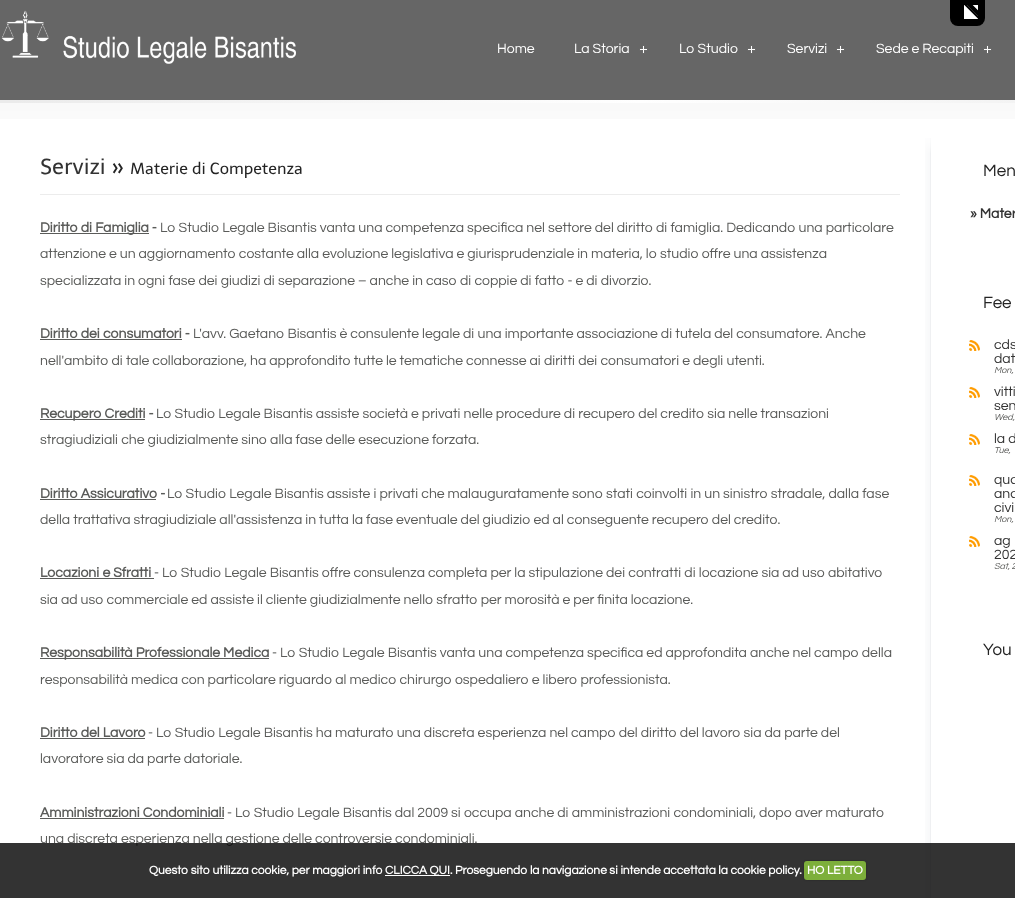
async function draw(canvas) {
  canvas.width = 1015;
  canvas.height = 898;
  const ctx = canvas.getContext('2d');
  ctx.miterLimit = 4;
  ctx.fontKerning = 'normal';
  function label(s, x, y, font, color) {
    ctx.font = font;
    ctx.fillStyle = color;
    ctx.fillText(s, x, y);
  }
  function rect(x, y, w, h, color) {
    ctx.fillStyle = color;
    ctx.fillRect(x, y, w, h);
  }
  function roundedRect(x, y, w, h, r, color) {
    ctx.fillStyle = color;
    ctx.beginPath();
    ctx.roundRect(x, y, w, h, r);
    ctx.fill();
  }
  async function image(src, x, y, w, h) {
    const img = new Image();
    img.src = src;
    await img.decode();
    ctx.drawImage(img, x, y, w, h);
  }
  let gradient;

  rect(0, 0, 1015, 898, '#fff');
  rect(0, 0, 1015, 100, '#666');
  ctx.fillStyle = '#000';
  ctx.beginPath();
  ctx.roundRect(950, 0, 35, 26, [0, 0, 8, 8]);
  ctx.fill();
  await image('assets/img1.png', 964, 5, 14, 14);
  await image('assets/img2.png', 1, 10, 295, 54);
  label('Home', 497, 53, '14px Questrial', '#fff');
  await image('assets/img3.png', 639, 45, 9, 9);
  label('La Storia', 574, 53, '14px Questrial', '#fff');
  await image('assets/img3.png', 747, 45, 9, 9);
  label('Lo Studio', 679, 53, '14px Questrial', '#fff');
  await image('assets/img3.png', 836, 45, 9, 9);
  label('Servizi', 787, 53, '14px Questrial', '#fff');
  await image('assets/img3.png', 983, 45, 9, 9);
  label('Sede e Recapiti', 876, 53, '14px Questrial', '#fff');
  await image('assets/img4.png', 0, 103, 1015, 16);
  gradient = ctx.createLinearGradient(0, 102, 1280, 101);
  gradient.addColorStop(0.01, '#ebebeb');
  gradient.addColorStop(0.5, '#fff');
  gradient.addColorStop(1, '#ebebeb');
  ctx.fillStyle = gradient;
  ctx.fillRect(0, 100, 1015, 3);
  rect(40, 194, 860, 1, '#ececec');
  label('Servizi', 40, 174, '22px Telex', '#333');
  label('»', 111, 174, '22px Telex', '#242424');
  label('Materie di Competenza', 130, 174, '16px Telex', '#242424');
  rect(40, 233, 109, 1, '#5a5b59');
  label('Diritto di Famiglia -', 40, 232, 'bold 14px Questrial', '#5a5b59');
  label('Lo Studio Legale Bisantis vanta una competenza specifica nel settore del diritto di famiglia. Dedicando una particolare', 160, 232, '14px Questrial', '#5a5b59');
  label('attenzione e un aggiornamento costante alla evoluzione legislativa e giurisprudenziale in materia, lo studio offre una assistenza', 40, 258, '14px Questrial', '#5a5b59');
  label('specializzata in ogni fase dei giudizi di separazione – anche in caso di coppie di fatto - e di divorzio.', 40, 285, '14px Questrial', '#5a5b59');
  label('Diritto dei consumatori -', 40, 338, 'bold 14px Questrial', '#5a5b59');
  rect(40, 339, 142, 1, '#5a5b59');
  label('L\'avv. Gaetano Bisantis è consulente legale di una importante associazione di tutela del consumatore. Anche', 193, 338, '14px Questrial', '#5a5b59');
  label('nell\'ambito di tale collaborazione, ha approfondito tutte le tematiche connesse ai diritti dei consumatori e degli utenti.', 40, 365, '14px Questrial', '#5a5b59');
  rect(40, 419, 105, 1, '#5a5b59');
  label('Recupero Crediti -', 40, 418, 'bold 14px Questrial', '#5a5b59');
  label('Lo Studio Legale Bisantis assiste società e privati nelle procedure di recupero del credito sia nelle transazioni', 156, 418, '14px Questrial', '#5a5b59');
  label('stragiudiziali che giudizialmente sino alla fase delle esecuzione forzata.', 40, 444, '14px Questrial', '#5a5b59');
  label('Diritto Assicurativo -', 40, 498, 'bold 14px Questrial', '#5a5b59');
  rect(40, 499, 116, 1, '#5a5b59');
  label('Lo Studio Legale Bisantis assiste i privati che malauguratamente sono stati coinvolti in un sinistro stradale, dalla fase', 167, 498, '14px Questrial', '#5a5b59');
  label('della trattativa stragiudiziale all\'assistenza in tutta la fase eventuale del giudizio ed al conseguente recupero del credito.', 40, 524, '14px Questrial', '#5a5b59');
  label('Locazioni e Sfratti', 40, 577, 'bold 14px Questrial', '#5a5b59');
  rect(40, 578, 114, 1, '#5a5b59');
  label('- Lo Studio Legale Bisantis offre consulenza completa per la stipulazione dei contratti di locazione sia ad uso abitativo', 154, 577, '14px Questrial', '#5a5b59');
  label('sia ad uso commerciale ed assiste il cliente giudizialmente nello sfratto per morosità e per finita locazione.', 40, 604, '14px Questrial', '#5a5b59');
  rect(40, 658, 229, 1, '#5a5b59');
  label('Responsabilità Professionale Medica', 40, 657, 'bold 14px Questrial', '#5a5b59');
  label('- Lo Studio Legale Bisantis vanta una competenza specifica ed approfondita anche nel campo della', 272, 657, '14px Questrial', '#5a5b59');
  label('responsabilità medica con particolare riguardo al medico chirurgo ospedaliero e libero professionista.', 40, 684, '14px Questrial', '#5a5b59');
  label('Diritto del Lavoro', 40, 737, 'bold 14px Questrial', '#5a5b59');
  rect(40, 738, 105, 1, '#5a5b59');
  label('- Lo Studio Legale Bisantis ha maturato una discreta esperienza nel campo del diritto del lavoro sia da parte del', 148, 737, '14px Questrial', '#5a5b59');
  label('lavoratore sia da parte datoriale.', 40, 763, '14px Questrial', '#5a5b59');
  label('Amministrazioni Condominiali', 40, 817, 'bold 14px Questrial', '#5a5b59');
  rect(40, 818, 184, 1, '#5a5b59');
  label('- Lo Studio Legale Bisantis dal 2009 si occupa anche di amministrazioni condominiali, dopo aver maturato', 227, 817, '14px Questrial', '#5a5b59');
  label('una discreta esperienza nella gestione delle controversie condominiali.', 40, 843, '14px Questrial', '#5a5b59');
  await image('assets/img5.png', 925, 138, 6, 15);
  await image('assets/img6.png', 925, 153, 6, 745);
  label('Men', 983, 176, '17px Questrial', '#242424');
  label('» Mater', 970, 218, 'bold 14px Questrial', '#333');
  label('Fee', 983, 308, '17px Questrial', '#242424');
  await image('assets/img7.png', 969, 340, 11, 11);
  label('cds', 994, 349, '14px Questrial', '#333');
  label('dat', 994, 363, '14px Questrial', '#333');
  label('Mon,', 994, 373, 'italic 9px Questrial', '#5a5b59');
  await image('assets/img7.png', 969, 387, 11, 11);
  label('vitti', 994, 396, '14px Questrial', '#333');
  label('sen', 994, 410, '14px Questrial', '#333');
  label('Wed,', 994, 420, 'italic 9px Questrial', '#5a5b59');
  await image('assets/img7.png', 969, 434, 11, 11);
  label('la d', 994, 443, '14px Questrial', '#333');
  label('Tue,', 994, 453, 'italic 9px Questrial', '#5a5b59');
  await image('assets/img7.png', 969, 475, 11, 11);
  label('qua', 994, 484, '14px Questrial', '#333');
  label('ana', 994, 498, '14px Questrial', '#333');
  label('civi', 994, 512, '14px Questrial', '#333');
  label('Mon,', 994, 522, 'italic 9px Questrial', '#5a5b59');
  await image('assets/img7.png', 969, 536, 11, 11);
  label('ag', 994, 545, '14px Questrial', '#333');
  label('202', 994, 559, '14px Questrial', '#333');
  label('Sat, 2', 994, 569, 'italic 9px Questrial', '#5a5b59');
  label('You', 983, 655, '17px Questrial', '#242424');
  rect(0, 843, 1015, 55, '#000000cc');
  label('Questo sito utilizza cookie, per maggiori info', 149, 874, 'bold 12px Questrial', '#fff');
  rect(385, 875, 65, 1, '#fff');
  label('CLICCA QUI. Proseguendo la navigazione si intende accettata la cookie policy.', 385, 874, 'bold 12px Questrial', '#fff');
  ctx.fillStyle = '#00000040';
  ctx.filter = 'blur(1px)';
  ctx.beginPath();
  ctx.roundRect(804, 861, 62, 19, 3);
  ctx.fill();
  ctx.filter = 'none';
  roundedRect(804, 861, 62, 19, 3, '#7daf3b');
  label('HO LETTO', 807, 874, 'bold 12px Questrial', '#fff');
}

draw(document.querySelector('canvas'));
